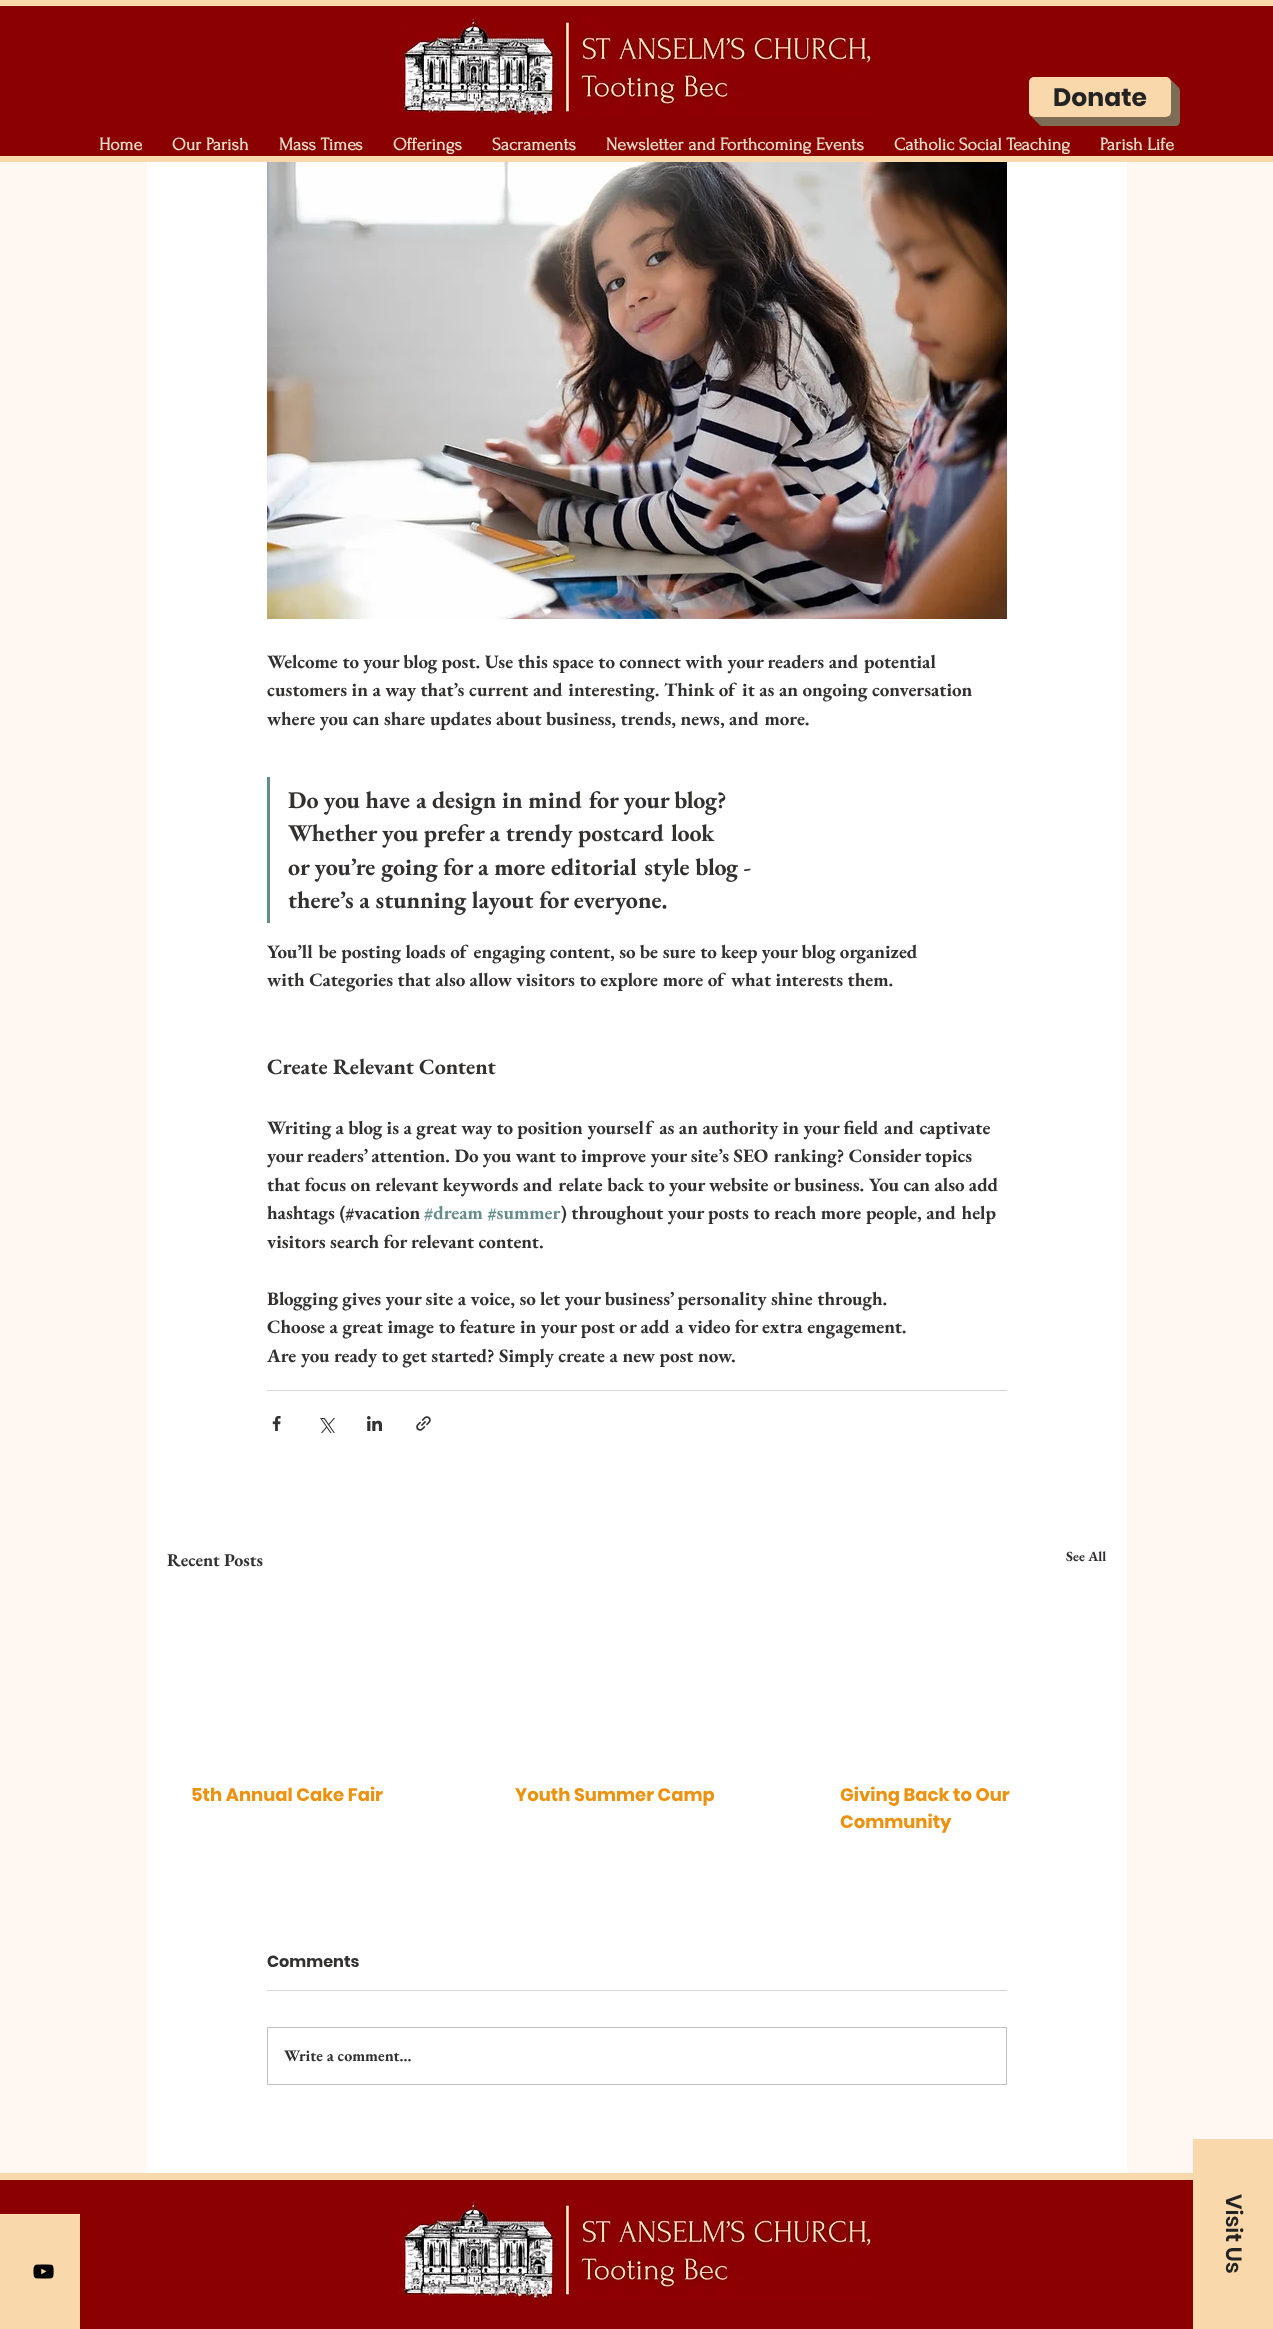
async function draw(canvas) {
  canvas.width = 1273;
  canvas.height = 2329;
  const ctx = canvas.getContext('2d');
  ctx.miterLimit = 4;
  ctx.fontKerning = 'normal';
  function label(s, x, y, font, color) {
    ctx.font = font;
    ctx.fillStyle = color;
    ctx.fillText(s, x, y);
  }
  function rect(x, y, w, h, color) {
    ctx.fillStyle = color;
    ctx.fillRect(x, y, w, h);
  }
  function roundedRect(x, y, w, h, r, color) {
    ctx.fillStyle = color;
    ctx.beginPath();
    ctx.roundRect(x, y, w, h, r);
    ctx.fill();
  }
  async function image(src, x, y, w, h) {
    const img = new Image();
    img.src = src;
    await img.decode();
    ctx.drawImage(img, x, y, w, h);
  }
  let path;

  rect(0, 0, 1273, 2329, '#fff7f2');
  rect(0, 6, 1273, 150, '#8b0000');
  rect(0, 0, 1273, 6, '#f9d9ab');
  rect(0, 156, 1273, 6, '#f9d9ab');
  await image('assets/img1.png', 398, 17, 476, 100);
  ctx.fillStyle = '#7d6d56';
  path = new Path2D('M1038 117V121C1038 124 1040 126 1043 126H1175C1178 126 1180 124 1180 121V91C1180 88 1178 86 1175 86H1171V112C1171 115 1169 117 1166 117Z');
  ctx.fill(path);
  path = new Path2D('M1036 117V119C1036 122 1038 124 1041 124H1173C1176 124 1178 122 1178 119V89C1178 86 1176 84 1173 84H1171V112C1171 115 1169 117 1166 117Z');
  ctx.fill(path);
  path = new Path2D('M1034 117C1034 120 1036 122 1039 122H1171C1174 122 1176 120 1176 117V87C1176 84 1174 82 1171 82V112C1171 115 1169 117 1166 117Z');
  ctx.fill(path);
  path = new Path2D('M1032 117C1033 119 1035 120 1037 120H1169C1172 120 1174 118 1174 115V85C1174 83 1173 81 1171 80V113C1169 121 1151 117 1144 117Z');
  ctx.fill(path);
  path = new Path2D('M1031 116C1032 117 1033 118 1035 118H1167C1170 118 1172 116 1172 113V83C1172 81 1171 80 1170 79C1171 80 1171 81 1171 82V112C1171 115 1169 117 1166 117H1034C1033 117 1032 117 1031 116Z');
  ctx.fill(path);
  roundedRect(1029, 77, 142, 40, 5, '#f9d9ab');
  label('Donate', 1053, 106, 'bold 25px Poppins', '#242323');
  label('Home', 99, 150, 'bold 18px Forum', '#e6deca');
  label('Our Parish', 172, 150, 'bold 18px Forum', '#e6deca');
  label('Mass Times', 279, 150, 'bold 18px Forum', '#e6deca');
  label('Offerings', 393, 150, 'bold 18px Forum', '#e6deca');
  label('Sacraments', 492, 150, 'bold 18px Forum', '#e6deca');
  label('Newsletter and Forthcoming Events', 606, 150, 'bold 18px Forum', '#e6deca');
  label('Catholic Social Teaching', 894, 150, 'bold 18px Forum', '#e6deca');
  label('Parish Life', 1100, 150, 'bold 18px Forum', '#e6deca');
  rect(147, 162, 980, 2011, '#fff');
  await image('assets/img2.png', 267, 162, 740, 457);
  label('Welcome to your blog post. Use this space to connect with your readers and potential', 267, 668, 'bold 19px EB Garamond', '#333130');
  label('customers in a way that’s current and interesting. Think of it as an ongoing conversation', 267, 696, 'bold 19px EB Garamond', '#333130');
  label('where you can share updates about business, trends, news, and more.', 267, 725, 'bold 19px EB Garamond', '#333130');
  rect(267, 777, 3, 146, '#648c88');
  label('Do you have a design in mind for your blog?', 288, 808, 'bold 24px EB Garamond', '#333130');
  label('Whether you prefer a trendy postcard look', 288, 841, 'bold 24px EB Garamond', '#333130');
  label('or you’re going for a more editorial style blog -', 288, 875, 'bold 24px EB Garamond', '#333130');
  label('there’s a stunning layout for everyone.', 288, 908, 'bold 24px EB Garamond', '#333130');
  label('You’ll be posting loads of engaging content, so be sure to keep your blog organized', 267, 958, 'bold 19px EB Garamond', '#333130');
  label('with Categories that also allow visitors to explore more of what interests them.', 267, 986, 'bold 19px EB Garamond', '#333130');
  label('Create Relevant Content', 267, 1074, 'bold 22px EB Garamond', '#333130');
  label('Writing a blog is a great way to position yourself as an authority in your field and captivate', 267, 1134, 'bold 19px EB Garamond', '#333130');
  label('your readers’ attention. Do you want to improve your site’s SEO ranking? Consider topics', 267, 1162, 'bold 19px EB Garamond', '#333130');
  label('that focus on relevant keywords and relate back to your website or business. You can also add', 267, 1191, 'bold 19px EB Garamond', '#333130');
  label('hashtags (#vacation', 267, 1219, 'bold 19px EB Garamond', '#333130');
  label('#dream #summer', 424, 1219, 'bold 19px EB Garamond', '#648c88');
  label(') throughout your posts to reach more people, and help', 561, 1219, 'bold 19px EB Garamond', '#333130');
  label('visitors search for relevant content.', 267, 1248, 'bold 19px EB Garamond', '#333130');
  label('Blogging gives your site a voice, so let your business’ personality shine through.', 267, 1305, 'bold 19px EB Garamond', '#333130');
  label('Choose a great image to feature in your post or add a video for extra engagement.', 267, 1333, 'bold 19px EB Garamond', '#333130');
  label('Are you ready to get started? Simply create a new post now.', 267, 1362, 'bold 19px EB Garamond', '#333130');
  rect(267, 1390, 740, 1, '#d6d6d6');
  await image('assets/img3.png', 272, 1416, 9, 15);
  await image('assets/img4.png', 320, 1418, 15, 15);
  await image('assets/img5.png', 367, 1416, 15, 15);
  await image('assets/img6.png', 416, 1416, 15, 15);
  label('Recent Posts', 167, 1566, 'bold 18px EB Garamond', '#333130');
  label('See All', 1066, 1561, 'bold 14px EB Garamond', '#333130');
  label('5th Annual Cake Fair', 191, 1801, 'bold 18px Poppins', '#ed920e');
  label('Youth Summer Camp', 515, 1801, 'bold 18px Poppins', '#ed920e');
  label('Giving Back to Our', 840, 1801, 'bold 18px Poppins', '#ed920e');
  label('Community', 840, 1828, 'bold 18px Poppins', '#ed920e');
  label('Comments', 267, 1967, 'bold 16px Poppins', '#333130');
  rect(267, 1990, 740, 1, '#d6d6d6');
  ctx.strokeStyle = '#c2c1c1';
  ctx.strokeRect(267.5, 2027.5, 739, 57);
  label('Write a comment...', 284, 2061, 'bold 16px EB Garamond', '#333130');
  rect(0, 2180, 1193, 149, '#8b0000');
  rect(0, 2173, 1193, 7, '#f9d9ab');
  await image('assets/img1.png', 398, 2200, 476, 100);
  rect(1193, 2139, 80, 190, '#f9d9ab');
  ctx.font = '600 22px Poppins';
  ctx.fillStyle = '#242323';
  ctx.save();
  ctx.translate(1226, 2194);
  ctx.rotate(90 * Math.PI / 180);
  ctx.fillText('Visit Us', 0, 0);
  ctx.restore();
  rect(0, 2214, 80, 115, '#f9d9ab');
  await image('assets/img7.png', 33, 2264, 21, 15);
}

draw(document.querySelector('canvas'));
